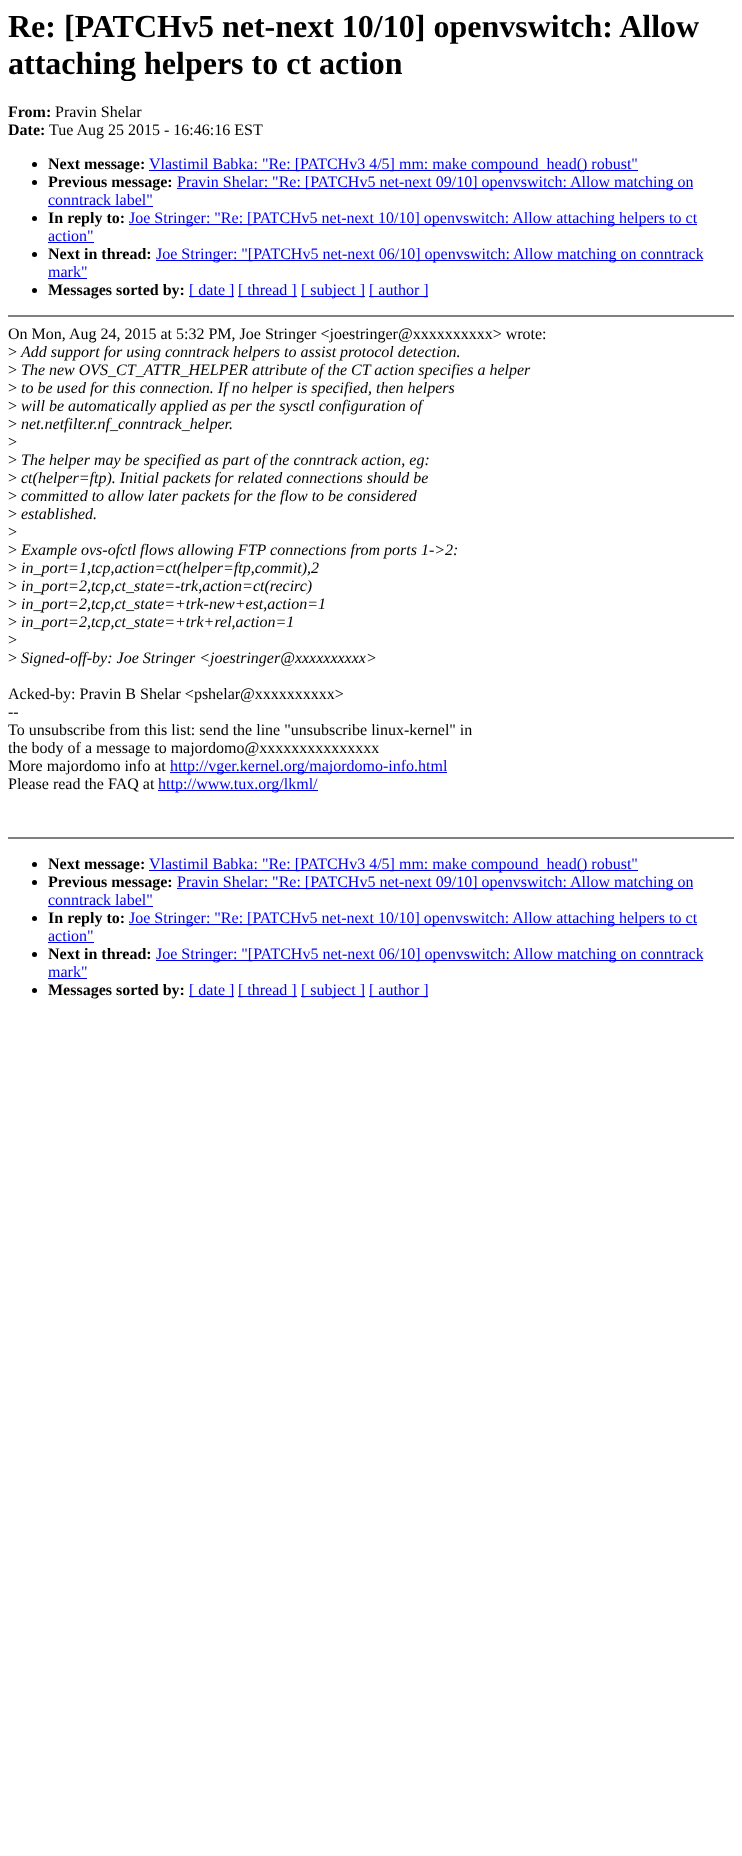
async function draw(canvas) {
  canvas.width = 742;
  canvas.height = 1856;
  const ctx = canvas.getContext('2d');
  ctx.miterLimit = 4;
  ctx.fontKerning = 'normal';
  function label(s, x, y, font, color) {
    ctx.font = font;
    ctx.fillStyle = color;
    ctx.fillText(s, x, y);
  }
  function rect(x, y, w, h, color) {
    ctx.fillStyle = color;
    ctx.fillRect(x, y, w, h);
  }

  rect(0, 0, 742, 1856, '#fff');
  label('Re: [PATCHv5 net-next 10/10] openvswitch: Allow', 8, 37, 'bold 32px Liberation Serif', '#000');
  label('attaching helpers to ct action', 8, 74, 'bold 32px Liberation Serif', '#000');
  label('From:', 8, 117, 'bold 16px Liberation Serif', '#000');
  label('Pravin Shelar', 55, 117, '16px Liberation Serif', '#000');
  label('Date:', 8, 135, 'bold 16px Liberation Serif', '#000');
  label('Tue Aug 25 2015 - 16:46:16 EST', 49, 135, '16px Liberation Serif', '#000');
  ctx.beginPath();
  ctx.arc(34.5, 164.5, 2.5, 0, 2 * Math.PI);
  ctx.fill();
  label('Next message:', 48, 169, 'bold 16px Liberation Serif', '#000');
  rect(149, 170, 489, 1, '#00e');
  label('Vlastimil Babka: "Re: [PATCHv3 4/5] mm: make compound_head() robust"', 149, 169, '16px Liberation Serif', '#00e');
  ctx.fillStyle = '#000';
  ctx.beginPath();
  ctx.arc(34.5, 182.5, 2.5, 0, 2 * Math.PI);
  ctx.fill();
  label('Previous message:', 48, 187, 'bold 16px Liberation Serif', '#000');
  rect(177, 188, 516, 1, '#00e');
  label('Pravin Shelar: "Re: [PATCHv5 net-next 09/10] openvswitch: Allow matching on', 177, 187, '16px Liberation Serif', '#00e');
  label('conntrack label"', 48, 205, '16px Liberation Serif', '#00e');
  rect(48, 206, 105, 1, '#00e');
  ctx.fillStyle = '#000';
  ctx.beginPath();
  ctx.arc(34.5, 218.5, 2.5, 0, 2 * Math.PI);
  ctx.fill();
  label('In reply to:', 48, 223, 'bold 16px Liberation Serif', '#000');
  rect(129, 224, 568, 1, '#00e');
  label('Joe Stringer: "Re: [PATCHv5 net-next 10/10] openvswitch: Allow attaching helpers to ct', 129, 223, '16px Liberation Serif', '#00e');
  label('action"', 48, 241, '16px Liberation Serif', '#00e');
  rect(48, 242, 46, 1, '#00e');
  ctx.fillStyle = '#000';
  ctx.beginPath();
  ctx.arc(34.5, 254.5, 2.5, 0, 2 * Math.PI);
  ctx.fill();
  label('Next in thread:', 48, 259, 'bold 16px Liberation Serif', '#000');
  rect(156, 260, 547, 1, '#00e');
  label('Joe Stringer: "[PATCHv5 net-next 06/10] openvswitch: Allow matching on conntrack', 156, 259, '16px Liberation Serif', '#00e');
  label('mark"', 48, 277, '16px Liberation Serif', '#00e');
  rect(48, 278, 39, 1, '#00e');
  ctx.fillStyle = '#000';
  ctx.beginPath();
  ctx.arc(34.5, 290.5, 2.5, 0, 2 * Math.PI);
  ctx.fill();
  label('Messages sorted by:', 48, 295, 'bold 16px Liberation Serif', '#000');
  rect(189, 296, 45, 1, '#00e');
  label('[ date ]', 189, 295, '16px Liberation Serif', '#00e');
  rect(238, 296, 59, 1, '#00e');
  label('[ thread ]', 238, 295, '16px Liberation Serif', '#00e');
  rect(301, 296, 64, 1, '#00e');
  label('[ subject ]', 301, 295, '16px Liberation Serif', '#00e');
  rect(369, 296, 59, 1, '#00e');
  label('[ author ]', 369, 295, '16px Liberation Serif', '#00e');
  rect(8, 315, 726, 2, '#808080');
  label('On Mon, Aug 24, 2015 at 5:32 PM, Joe Stringer <joestringer@xxxxxxxxxx> wrote:', 8, 339, '16px Liberation Serif', '#000');
  label('>', 8, 357, '16px Liberation Serif', '#000');
  label('Add support for using conntrack helpers to assist protocol detection.', 21, 357, 'italic 16px Liberation Serif', '#000');
  label('>', 8, 375, '16px Liberation Serif', '#000');
  label('The new OVS_CT_ATTR_HELPER attribute of the CT action specifies a helper', 21, 375, 'italic 16px Liberation Serif', '#000');
  label('>', 8, 393, '16px Liberation Serif', '#000');
  label('to be used for this connection. If no helper is specified, then helpers', 21, 393, 'italic 16px Liberation Serif', '#000');
  label('>', 8, 411, '16px Liberation Serif', '#000');
  label('will be automatically applied as per the sysctl configuration of', 21, 411, 'italic 16px Liberation Serif', '#000');
  label('>', 8, 429, '16px Liberation Serif', '#000');
  label('net.netfilter.nf_conntrack_helper.', 21, 429, 'italic 16px Liberation Serif', '#000');
  label('>', 8, 447, '16px Liberation Serif', '#000');
  label('>', 8, 465, '16px Liberation Serif', '#000');
  label('The helper may be specified as part of the conntrack action, eg:', 21, 465, 'italic 16px Liberation Serif', '#000');
  label('>', 8, 483, '16px Liberation Serif', '#000');
  label('ct(helper=ftp). Initial packets for related connections should be', 21, 483, 'italic 16px Liberation Serif', '#000');
  label('>', 8, 501, '16px Liberation Serif', '#000');
  label('committed to allow later packets for the flow to be considered', 21, 501, 'italic 16px Liberation Serif', '#000');
  label('>', 8, 519, '16px Liberation Serif', '#000');
  label('established.', 21, 519, 'italic 16px Liberation Serif', '#000');
  label('>', 8, 537, '16px Liberation Serif', '#000');
  label('>', 8, 555, '16px Liberation Serif', '#000');
  label('Example ovs-ofctl flows allowing FTP connections from ports 1->2:', 21, 555, 'italic 16px Liberation Serif', '#000');
  label('>', 8, 573, '16px Liberation Serif', '#000');
  label('in_port=1,tcp,action=ct(helper=ftp,commit),2', 21, 573, 'italic 16px Liberation Serif', '#000');
  label('>', 8, 591, '16px Liberation Serif', '#000');
  label('in_port=2,tcp,ct_state=-trk,action=ct(recirc)', 21, 591, 'italic 16px Liberation Serif', '#000');
  label('>', 8, 609, '16px Liberation Serif', '#000');
  label('in_port=2,tcp,ct_state=+trk-new+est,action=1', 21, 609, 'italic 16px Liberation Serif', '#000');
  label('>', 8, 627, '16px Liberation Serif', '#000');
  label('in_port=2,tcp,ct_state=+trk+rel,action=1', 21, 627, 'italic 16px Liberation Serif', '#000');
  label('>', 8, 645, '16px Liberation Serif', '#000');
  label('>', 8, 663, '16px Liberation Serif', '#000');
  label('Signed-off-by: Joe Stringer <joestringer@xxxxxxxxxx>', 21, 663, 'italic 16px Liberation Serif', '#000');
  label('Acked-by: Pravin B Shelar <pshelar@xxxxxxxxxx>', 8, 699, '16px Liberation Serif', '#000');
  label('--', 8, 717, '16px Liberation Serif', '#000');
  label('To unsubscribe from this list: send the line "unsubscribe linux-kernel" in', 8, 735, '16px Liberation Serif', '#000');
  label('the body of a message to majordomo@xxxxxxxxxxxxxxx', 8, 753, '16px Liberation Serif', '#000');
  label('More majordomo info at', 8, 771, '16px Liberation Serif', '#000');
  rect(170, 772, 277, 1, '#00e');
  label('http://vger.kernel.org/majordomo-info.html', 170, 771, '16px Liberation Serif', '#00e');
  label('Please read the FAQ at', 8, 789, '16px Liberation Serif', '#000');
  rect(158, 790, 160, 1, '#00e');
  label('http://www.tux.org/lkml/', 158, 789, '16px Liberation Serif', '#00e');
  rect(8, 837, 726, 2, '#808080');
  ctx.fillStyle = '#000';
  ctx.beginPath();
  ctx.arc(34.5, 864.5, 2.5, 0, 2 * Math.PI);
  ctx.fill();
  label('Next message:', 48, 869, 'bold 16px Liberation Serif', '#000');
  rect(149, 870, 489, 1, '#00e');
  label('Vlastimil Babka: "Re: [PATCHv3 4/5] mm: make compound_head() robust"', 149, 869, '16px Liberation Serif', '#00e');
  ctx.fillStyle = '#000';
  ctx.beginPath();
  ctx.arc(34.5, 882.5, 2.5, 0, 2 * Math.PI);
  ctx.fill();
  label('Previous message:', 48, 887, 'bold 16px Liberation Serif', '#000');
  rect(177, 888, 516, 1, '#00e');
  label('Pravin Shelar: "Re: [PATCHv5 net-next 09/10] openvswitch: Allow matching on', 177, 887, '16px Liberation Serif', '#00e');
  label('conntrack label"', 48, 905, '16px Liberation Serif', '#00e');
  rect(48, 906, 105, 1, '#00e');
  ctx.fillStyle = '#000';
  ctx.beginPath();
  ctx.arc(34.5, 918.5, 2.5, 0, 2 * Math.PI);
  ctx.fill();
  label('In reply to:', 48, 923, 'bold 16px Liberation Serif', '#000');
  rect(129, 924, 568, 1, '#00e');
  label('Joe Stringer: "Re: [PATCHv5 net-next 10/10] openvswitch: Allow attaching helpers to ct', 129, 923, '16px Liberation Serif', '#00e');
  label('action"', 48, 941, '16px Liberation Serif', '#00e');
  rect(48, 942, 46, 1, '#00e');
  ctx.fillStyle = '#000';
  ctx.beginPath();
  ctx.arc(34.5, 954.5, 2.5, 0, 2 * Math.PI);
  ctx.fill();
  label('Next in thread:', 48, 959, 'bold 16px Liberation Serif', '#000');
  rect(156, 960, 547, 1, '#00e');
  label('Joe Stringer: "[PATCHv5 net-next 06/10] openvswitch: Allow matching on conntrack', 156, 959, '16px Liberation Serif', '#00e');
  label('mark"', 48, 977, '16px Liberation Serif', '#00e');
  rect(48, 978, 39, 1, '#00e');
  ctx.fillStyle = '#000';
  ctx.beginPath();
  ctx.arc(34.5, 990.5, 2.5, 0, 2 * Math.PI);
  ctx.fill();
  label('Messages sorted by:', 48, 995, 'bold 16px Liberation Serif', '#000');
  rect(189, 996, 45, 1, '#00e');
  label('[ date ]', 189, 995, '16px Liberation Serif', '#00e');
  rect(238, 996, 59, 1, '#00e');
  label('[ thread ]', 238, 995, '16px Liberation Serif', '#00e');
  rect(301, 996, 64, 1, '#00e');
  label('[ subject ]', 301, 995, '16px Liberation Serif', '#00e');
  rect(369, 996, 59, 1, '#00e');
  label('[ author ]', 369, 995, '16px Liberation Serif', '#00e');
}

draw(document.querySelector('canvas'));
